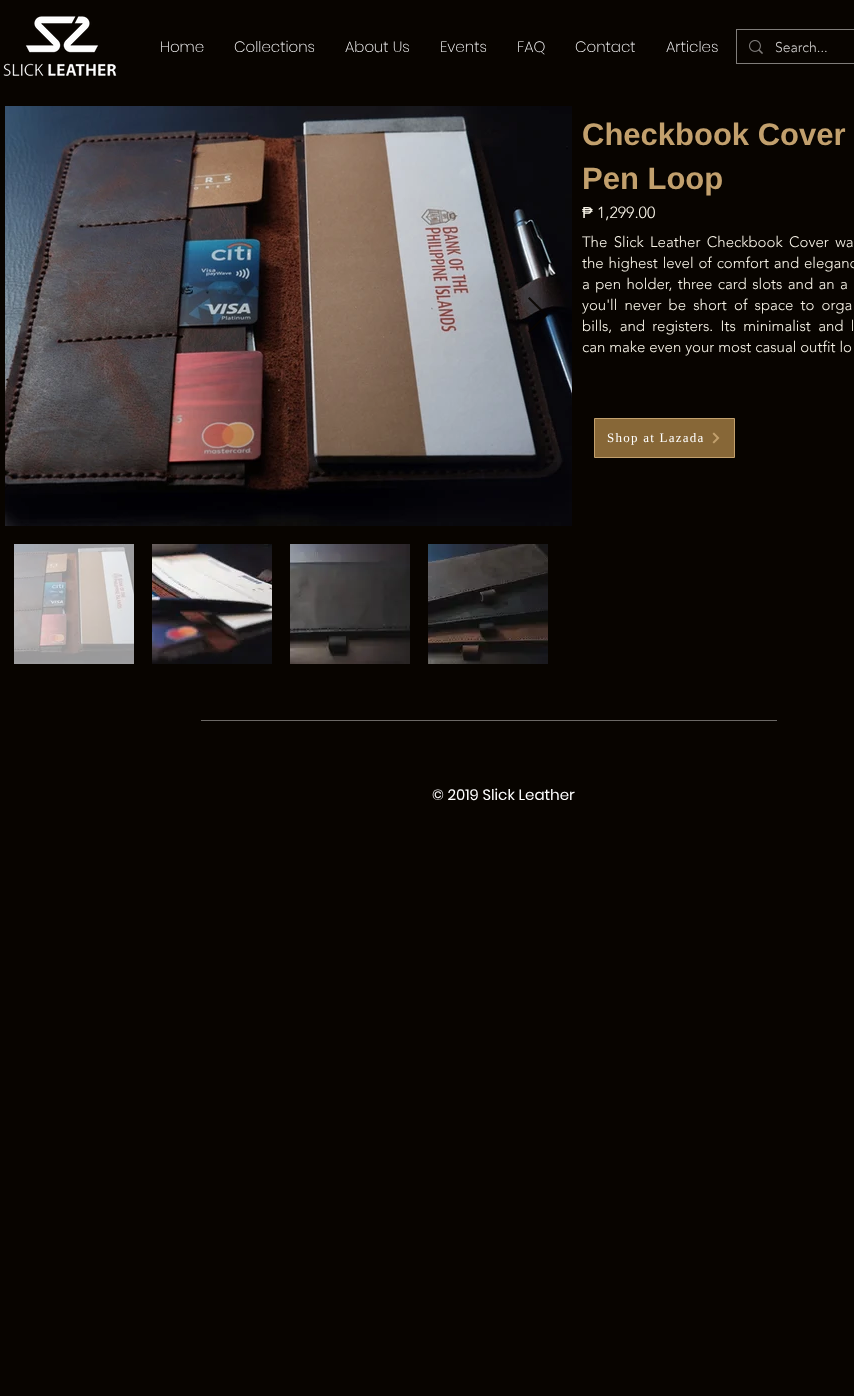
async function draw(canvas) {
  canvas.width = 854;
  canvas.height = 1396;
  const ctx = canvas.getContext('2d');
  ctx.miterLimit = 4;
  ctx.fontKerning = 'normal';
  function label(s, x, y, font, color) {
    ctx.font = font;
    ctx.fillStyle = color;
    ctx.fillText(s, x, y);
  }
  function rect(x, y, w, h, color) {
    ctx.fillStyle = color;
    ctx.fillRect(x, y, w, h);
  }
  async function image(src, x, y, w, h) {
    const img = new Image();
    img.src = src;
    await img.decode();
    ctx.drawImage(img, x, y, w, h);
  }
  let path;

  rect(0, 0, 854, 1396, '#080400');
  await image('assets/img1.png', 3, 16, 114, 60);
  label('Home', 160, 52, '200 15px Poppins', '#fff');
  label('Collections', 234, 52, '200 15px Poppins', '#fff');
  label('About Us', 345, 52, '200 15px Poppins', '#fff');
  label('Events', 440, 52, '200 15px Poppins', '#fff');
  label('FAQ', 517, 52, '200 15px Poppins', '#fff');
  label('Contact', 575, 52, '200 15px Poppins', '#fff');
  label('Articles', 666, 52, '200 15px Poppins', '#fff');
  ctx.strokeStyle = '#807d7a';
  ctx.strokeRect(736.5, 29.5, 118, 34);
  await image('assets/img2.png', 749, 40, 14, 14);
  label('Search...', 775, 52, '300 14px "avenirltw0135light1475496"', '#d0cecc');
  await image('assets/img3.png', 5, 106, 567, 420);
  ctx.fillStyle = '#080400e6';
  path = new Path2D('M528 298.5L529.5 297L547.5 315L529.5 333L528 331.5L544.5 315Z');
  ctx.fill(path);
  await image('assets/img4.png', 14, 544, 120, 120);
  await image('assets/img5.png', 152, 544, 120, 120);
  await image('assets/img6.png', 290, 544, 120, 120);
  await image('assets/img7.png', 428, 544, 120, 120);
  label('Checkbook Cover', 582, 145, 'bold 31px Liberation Sans', '#c2a06d');
  label('Pen Loop', 582, 189, 'bold 31px Liberation Sans', '#c2a06d');
  label('₱', 582, 218, '16px Liberation Sans', '#faf6e9');
  label('1,299.00', 597, 218, '300 16px "avenirltw0135light1475496"', '#faf6e9');
  ctx.wordSpacing = '2.5px';
  label('The Slick Leather Checkbook Cover wa', 582, 247, '300 15px "avenirltw0135light1475496"', '#faf6e9');
  ctx.wordSpacing = '1px';
  label('the highest level of comfort and eleganc', 582, 268, '300 15px "avenirltw0135light1475496"', '#faf6e9');
  ctx.wordSpacing = '1.5px';
  label('a pen holder, three card slots and an a', 582, 289, '300 15px "avenirltw0135light1475496"', '#faf6e9');
  ctx.wordSpacing = '3.25px';
  label('you\'ll never be short of space to orga', 582, 310, '300 15px "avenirltw0135light1475496"', '#faf6e9');
  ctx.wordSpacing = '3.5px';
  label('bills, and registers. Its minimalist and l', 582, 331, '300 15px "avenirltw0135light1475496"', '#faf6e9');
  ctx.wordSpacing = '0px';
  label('can make even your most casual outfit lo', 582, 352, '300 15px "avenirltw0135light1475496"', '#faf6e9');
  ctx.fillStyle = '#876737';
  ctx.beginPath();
  ctx.rect(594.5, 418.5, 140, 39);
  ctx.fill();
  ctx.strokeStyle = '#c2a06d';
  ctx.stroke();
  ctx.letterSpacing = '1.25px';
  label('Shop at Lazada', 607, 442, '13px Liberation Serif', '#fff');
  await image('assets/img8.png', 712, 432, 8, 12);
  rect(201, 720, 576, 1, '#6c6966');
  ctx.letterSpacing = '0px';
  label('© 2019 Slick Leather', 432, 800, '15px Poppins', '#fff');
}

draw(document.querySelector('canvas'));
